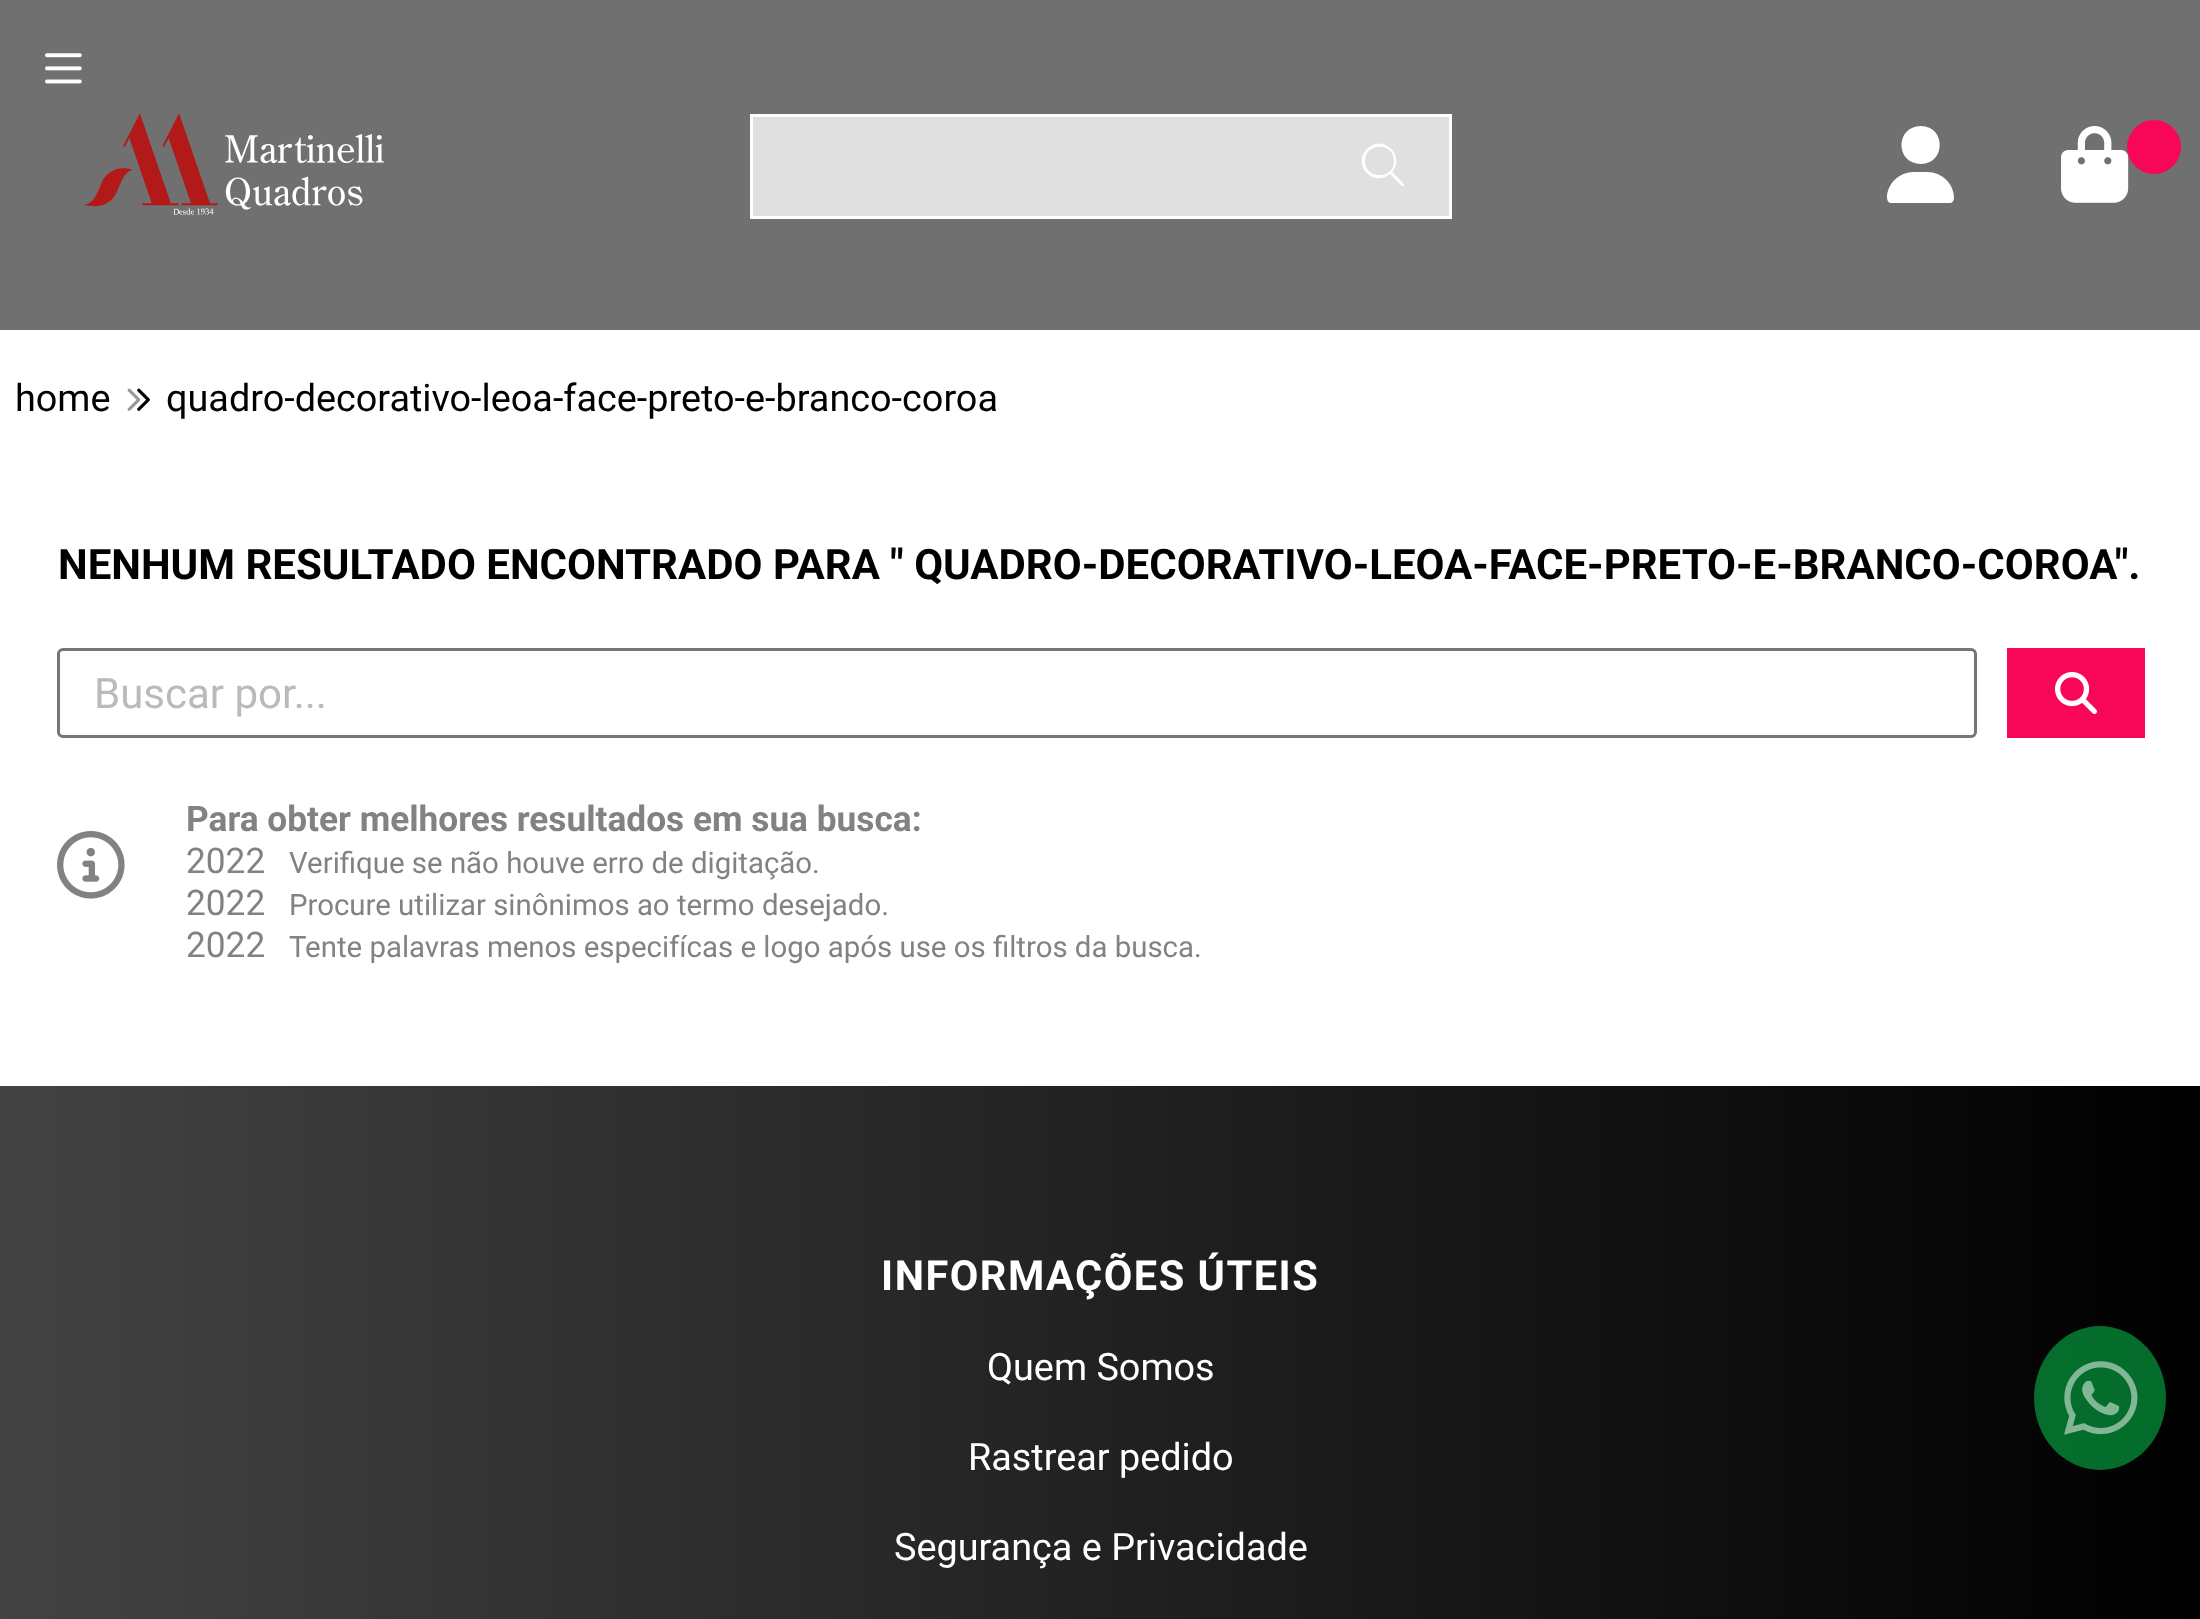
async function draw(canvas) {
  canvas.width = 2200;
  canvas.height = 1619;
  const ctx = canvas.getContext('2d');
  ctx.miterLimit = 4;
  ctx.fontKerning = 'normal';
  function label(s, x, y, font, color) {
    ctx.font = font;
    ctx.fillStyle = color;
    ctx.fillText(s, x, y);
  }
  function rect(x, y, w, h, color) {
    ctx.fillStyle = color;
    ctx.fillRect(x, y, w, h);
  }
  async function image(src, x, y, w, h) {
    const img = new Image();
    img.src = src;
    await img.decode();
    ctx.drawImage(img, x, y, w, h);
  }
  let gradient, path;

  rect(0, 0, 2200, 1619, '#fff');
  rect(0, 0, 2200, 330, '#707070');
  await image('assets/img1.png', 45, 53, 37, 31);
  await image('assets/img2.png', 84, 113, 300, 102);
  ctx.fillStyle = '#e0e0e0';
  ctx.beginPath();
  ctx.rect(751.5, 115.5, 699, 102);
  ctx.fill();
  ctx.strokeStyle = '#fff';
  ctx.lineWidth = 3;
  ctx.stroke();
  ctx.fillStyle = '#fff';
  path = new Path2D('M1394 161C1394 142 1365 142 1365 161C1365 180 1394 180 1394 161ZM1390 174C1374 188 1351 165 1367 149C1383 133 1406 156 1392 172C1394 174 1404 183 1404 185C1404 186 1402 186 1402 186Z');
  ctx.fill(path);
  path = new Path2D('M1921 164C1946 164 1946 126 1921 126C1895 126 1895 164 1921 164ZM1914 172C1899 172 1887 184 1887 198C1887 201 1889 203 1891 203H1950C1952 203 1954 201 1954 198C1954 184 1942 172 1927 172Z');
  ctx.fill(path);
  await image('assets/img3.png', 2061, 126, 68, 77);
  ctx.fillStyle = '#f80759';
  ctx.beginPath();
  ctx.arc(2154, 147, 27, 0, 2 * Math.PI);
  ctx.fill();
  label('home', 15, 411, '37.8px Roboto', '#000');
  await image('assets/img4.png', 127, 388, 23, 23);
  label('quadro-decorativo-leoa-face-preto-e-branco-coroa', 166, 411, '37.8px Roboto', '#000');
  label('NENHUM RESULTADO ENCONTRADO PARA " QUADRO-DECORATIVO-LEOA-FACE-PRETO-E-BRANCO-COROA".', 58, 579, 'bold 42px Roboto', '#000');
  ctx.beginPath();
  ctx.roundRect(58.5, 649.5, 1917, 87, 4.5);
  ctx.strokeStyle = '#767676';
  ctx.stroke();
  label('Buscar por...', 94, 708, '42px Roboto', '#bababa');
  rect(2007, 648, 138, 90, '#f80759');
  await image('assets/img5.png', 2055, 672, 42, 42);
  await image('assets/img6.png', 57, 831, 68, 68);
  label('Para obter melhores resultados em sua busca:', 186, 831, 'bold 35.25px Roboto', '#828282');
  label('2022', 186, 873, '35.25px Roboto', '#828282');
  label('Verifique se não houve erro de digitação.', 289, 873, '29.4px Roboto', '#828282');
  label('2022', 186, 915, '35.25px Roboto', '#828282');
  label('Procure utilizar sinônimos ao termo desejado.', 289, 915, '29.4px Roboto', '#828282');
  label('2022', 186, 957, '35.25px Roboto', '#828282');
  label('Tente palavras menos especifícas e logo após use os filtros da busca.', 289, 957, '29.4px Roboto', '#828282');
  gradient = ctx.createLinearGradient(0, 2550, 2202, 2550);
  gradient.addColorStop(0, '#434343');
  gradient.addColorStop(1, '#000');
  ctx.fillStyle = gradient;
  ctx.fillRect(0, 1086, 2200, 533);
  ctx.letterSpacing = '1.5px';
  label('INFORMAÇÕES ÚTEIS', 881, 1290, 'bold 41.5px Roboto', '#fff');
  ctx.letterSpacing = '0px';
  label('Quem Somos', 987, 1380, '37.8px Roboto', '#fff');
  label('Rastrear pedido', 968, 1470, '37.8px Roboto', '#fff');
  label('Segurança e Privacidade', 894, 1560, '37.8px Roboto', '#fff');
  ctx.fillStyle = '#06d75580';
  ctx.beginPath();
  ctx.ellipse(2100, 1398, 66, 72, 0, 0, 2 * Math.PI);
  ctx.fill();
  await image('assets/img7.png', 2064, 1361, 74, 74);
}

draw(document.querySelector('canvas'));
